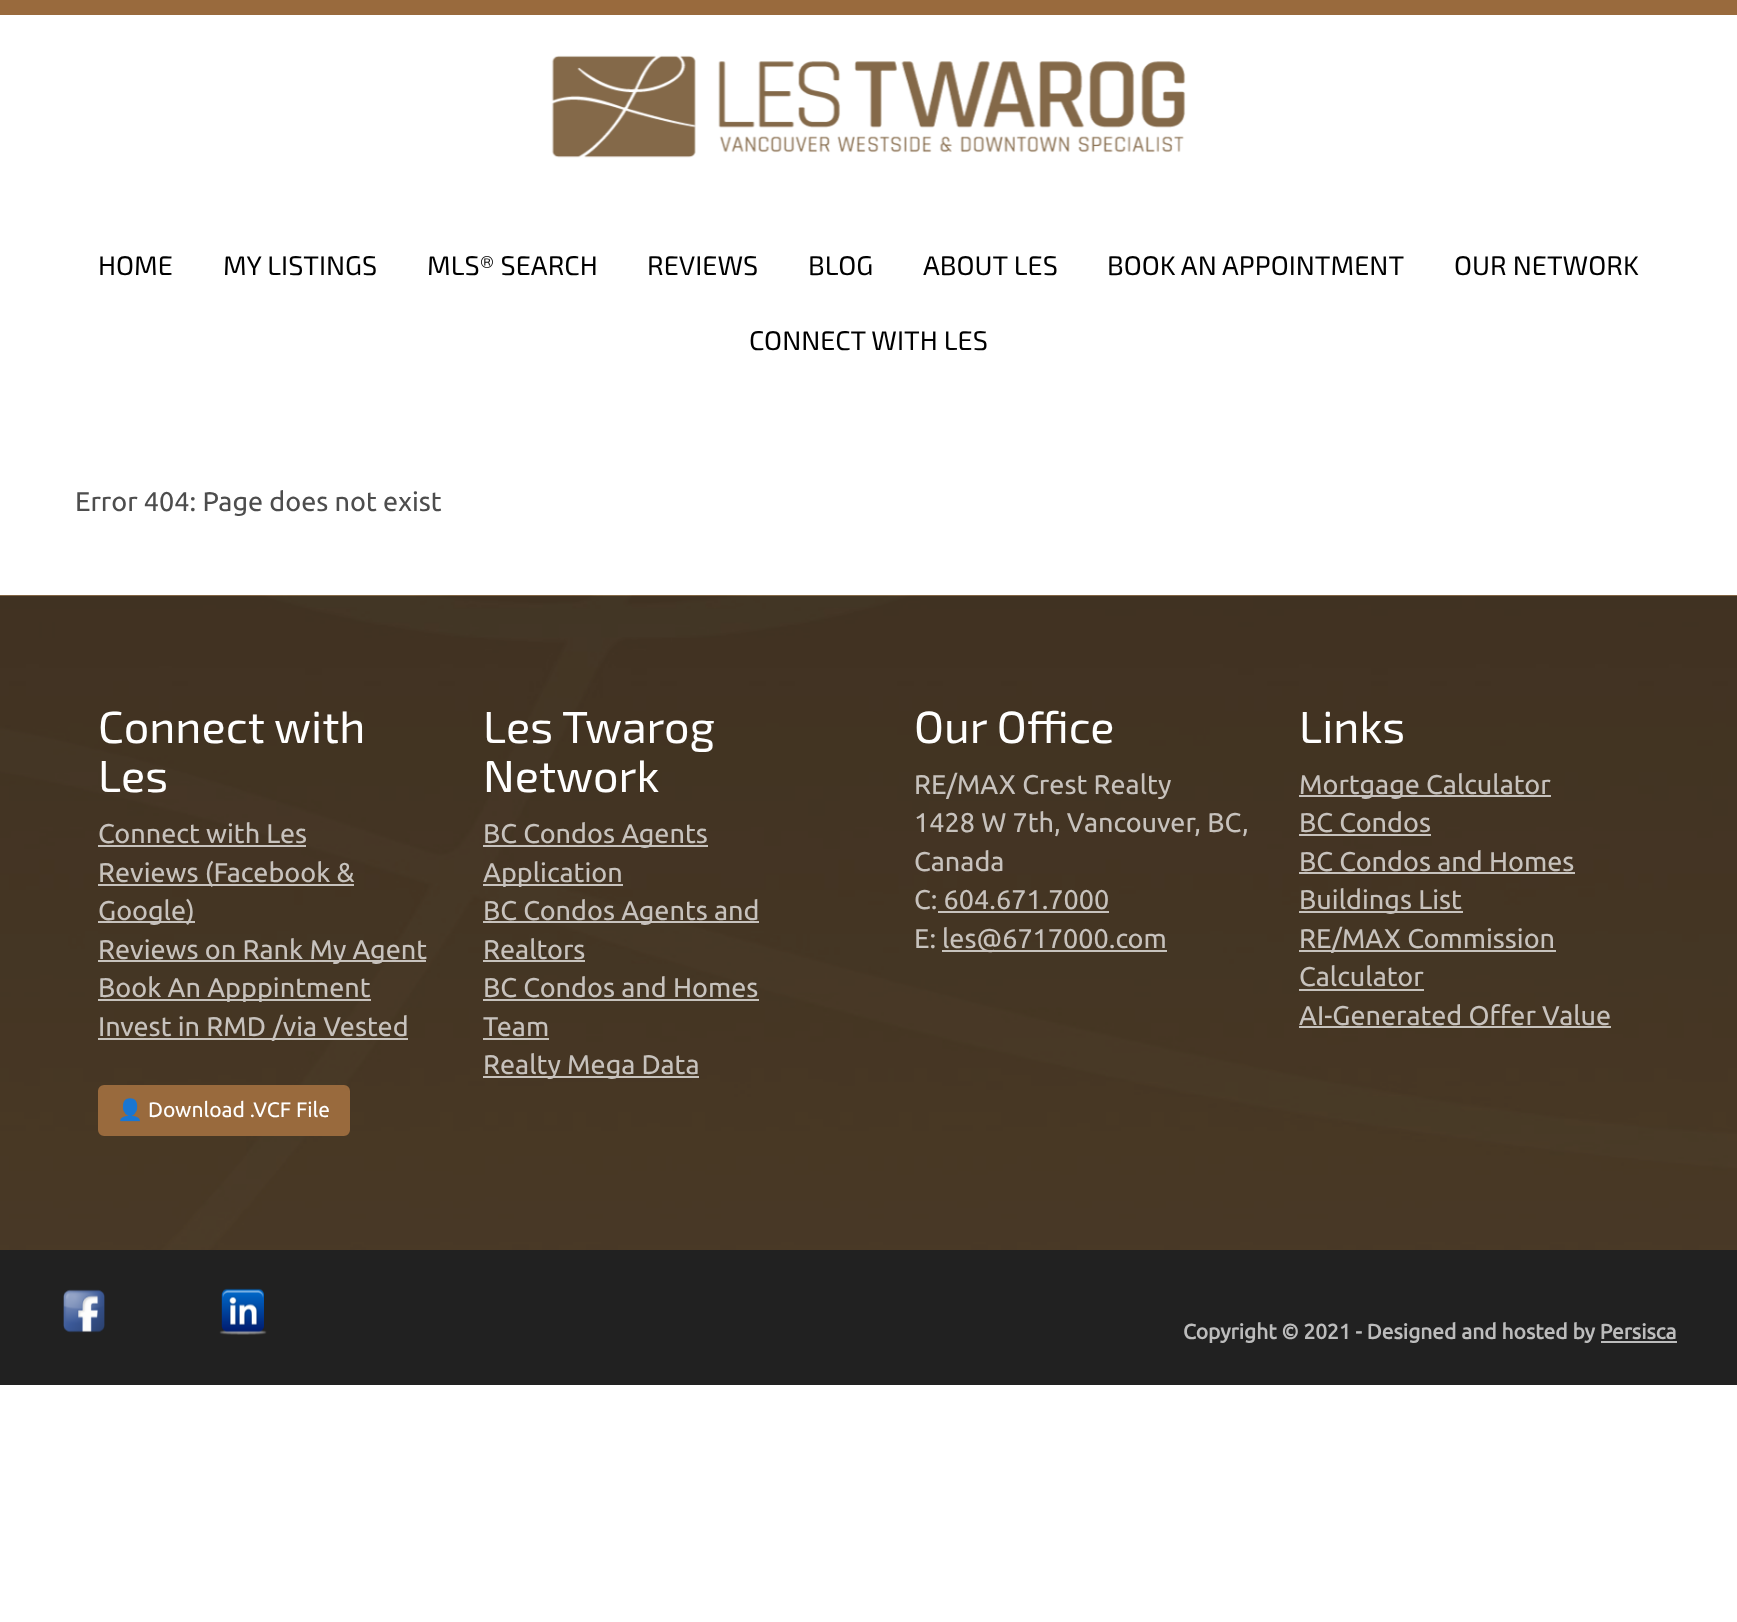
async function draw(canvas) {
  canvas.width = 1737;
  canvas.height = 1622;
  const ctx = canvas.getContext('2d');
  ctx.miterLimit = 4;
  ctx.fontKerning = 'normal';
  function label(s, x, y, font, color) {
    ctx.font = font;
    ctx.fillStyle = color;
    ctx.fillText(s, x, y);
  }
  function rect(x, y, w, h, color) {
    ctx.fillStyle = color;
    ctx.fillRect(x, y, w, h);
  }
  async function image(src, x, y, w, h) {
    const img = new Image();
    img.src = src;
    await img.decode();
    ctx.drawImage(img, x, y, w, h);
  }

  rect(0, 0, 1737, 1622, '#fff');
  rect(0, 0, 1737, 15, '#996a3d');
  await image('assets/img1.png', 551, 55, 635, 103);
  label('HOME', 98, 275, '27px "Exo 2"', '#000');
  label('MY LISTINGS', 223, 275, '27px "Exo 2"', '#000');
  label('MLS® SEARCH', 427, 275, '27px "Exo 2"', '#000');
  label('REVIEWS', 647, 275, '27px "Exo 2"', '#000');
  label('BLOG', 808, 275, '27px "Exo 2"', '#000');
  label('ABOUT LES', 923, 275, '27px "Exo 2"', '#000');
  label('BOOK AN APPOINTMENT', 1107, 275, '27px "Exo 2"', '#000');
  label('OUR NETWORK', 1454, 275, '27px "Exo 2"', '#000');
  label('CONNECT WITH LES', 749, 350, '27px "Exo 2"', '#000');
  label('Error 404: Page does not exist', 75, 511, '27px Ubuntu', '#4d4d4d');
  await image('assets/img2.png', 0, 595, 1737, 655);
  label('Connect with', 98, 743, '45px "Exo 2"', '#fff');
  label('Les', 98, 792, '45px "Exo 2"', '#fff');
  label('Connect with Les', 98, 843, '27px Ubuntu', '#c7c2bd');
  rect(98, 845, 208, 2, '#c7c2bd');
  rect(98, 884, 256, 2, '#c7c2bd');
  label('Reviews (Facebook &', 98, 882, '27px Ubuntu', '#c7c2bd');
  rect(98, 921, 97, 2, '#c7c2bd');
  label('Google)', 98, 920, '27px Ubuntu', '#c7c2bd');
  rect(98, 960, 328, 2, '#ffffffb3');
  label('Reviews on Rank My Agent', 98, 959, '27px Ubuntu', '#c7c2bd');
  rect(98, 999, 273, 2, '#ffffffb3');
  label('Book An Apppintment', 98, 997, '27px Ubuntu', '#c7c2bd');
  rect(98, 1038, 310, 2, '#ffffffb3');
  label('Invest in RMD /via Vested', 98, 1036, '27px Ubuntu', '#c7c2bd');
  ctx.fillStyle = '#996a3d';
  ctx.beginPath();
  ctx.roundRect(99, 1086, 250, 49, 5);
  ctx.fill();
  ctx.strokeStyle = '#996a3d';
  ctx.lineWidth = 2;
  ctx.stroke();
  label('👤', 117, 1117, '21px Noto Color Emoji', '#fff');
  label('Download .VCF File', 148, 1117, '21px Ubuntu', '#fff');
  label('Les Twarog', 483, 743, '45px "Exo 2"', '#fff');
  label('Network', 483, 792, '45px "Exo 2"', '#fff');
  rect(483, 845, 225, 2, '#ffffffb3');
  label('BC Condos Agents', 483, 843, '27px Ubuntu', '#c7c2bd');
  rect(483, 884, 140, 2, '#ffffffb3');
  label('Application', 483, 882, '27px Ubuntu', '#c7c2bd');
  rect(483, 921, 276, 2, '#ffffffb3');
  label('BC Condos Agents and', 483, 920, '27px Ubuntu', '#c7c2bd');
  label('Realtors', 483, 959, '27px Ubuntu', '#c7c2bd');
  rect(483, 960, 102, 2, '#c7c3bd');
  label('BC Condos and Homes', 483, 997, '27px Ubuntu', '#c7c2bd');
  rect(483, 999, 276, 2, '#c7c3bd');
  label('Team', 483, 1036, '27px Ubuntu', '#c7c2bd');
  rect(483, 1038, 66, 2, '#c7c3bd');
  rect(483, 1076, 216, 2, '#c8c3bd');
  label('Realty Mega Data', 483, 1074, '27px Ubuntu', '#c7c2bd');
  label('Our Office', 914, 743, '45px "Exo 2"', '#fff');
  label('RE/MAX Crest Realty', 914, 794, '27px Ubuntu', '#c7c2bd');
  label('1428 W 7th, Vancouver, BC,', 914, 832, '27px Ubuntu', '#c7c2bd');
  label('Canada', 914, 871, '27px Ubuntu', '#c7c2bd');
  label('C: 604.671.7000', 914, 909, '27px Ubuntu', '#c7c2bd');
  rect(938, 911, 171, 2, '#c7c2bd');
  label('E:', 914, 948, '27px Ubuntu', '#c7c2bd');
  rect(942, 950, 225, 2, '#c7c3bd');
  label('les@6717000.com', 942, 948, '27px Ubuntu', '#c7c2bd');
  label('Links', 1299, 743, '45px "Exo 2"', '#fff');
  rect(1299, 795, 252, 2, '#c7c2bd');
  label('Mortgage Calculator', 1299, 794, '27px Ubuntu', '#c7c2bd');
  label('BC Condos', 1299, 832, '27px Ubuntu', '#c7c2bd');
  rect(1299, 834, 132, 2, '#c7c2bd');
  label('BC Condos and Homes', 1299, 871, '27px Ubuntu', '#c7c2bd');
  rect(1299, 872, 276, 2, '#c7c2bd');
  rect(1299, 911, 164, 2, '#c7c2bd');
  label('Buildings List', 1299, 909, '27px Ubuntu', '#c7c2bd');
  rect(1299, 950, 257, 2, '#c7c3bd');
  label('RE/MAX Commission', 1299, 948, '27px Ubuntu', '#c7c2bd');
  label('Calculator', 1299, 986, '27px Ubuntu', '#c7c2bd');
  rect(1299, 989, 125, 2, '#c7c3bd');
  label('AI-Generated Offer Value', 1299, 1025, '27px Ubuntu', '#c7c2bd');
  rect(1299, 1026, 312, 2, '#c7c3bd');
  rect(0, 1250, 1737, 135, '#212121');
  await image('assets/img3.png', 63, 1289, 42, 44);
  await image('assets/img4.png', 219, 1288, 48, 47);
  label('Copyright © 2021 - Designed and hosted by Persisca', 1183, 1339, 'bold 21px Ubuntu', '#bcbcbc');
  rect(1601, 1341, 76, 2, '#bcbcbc');
}

draw(document.querySelector('canvas'));
